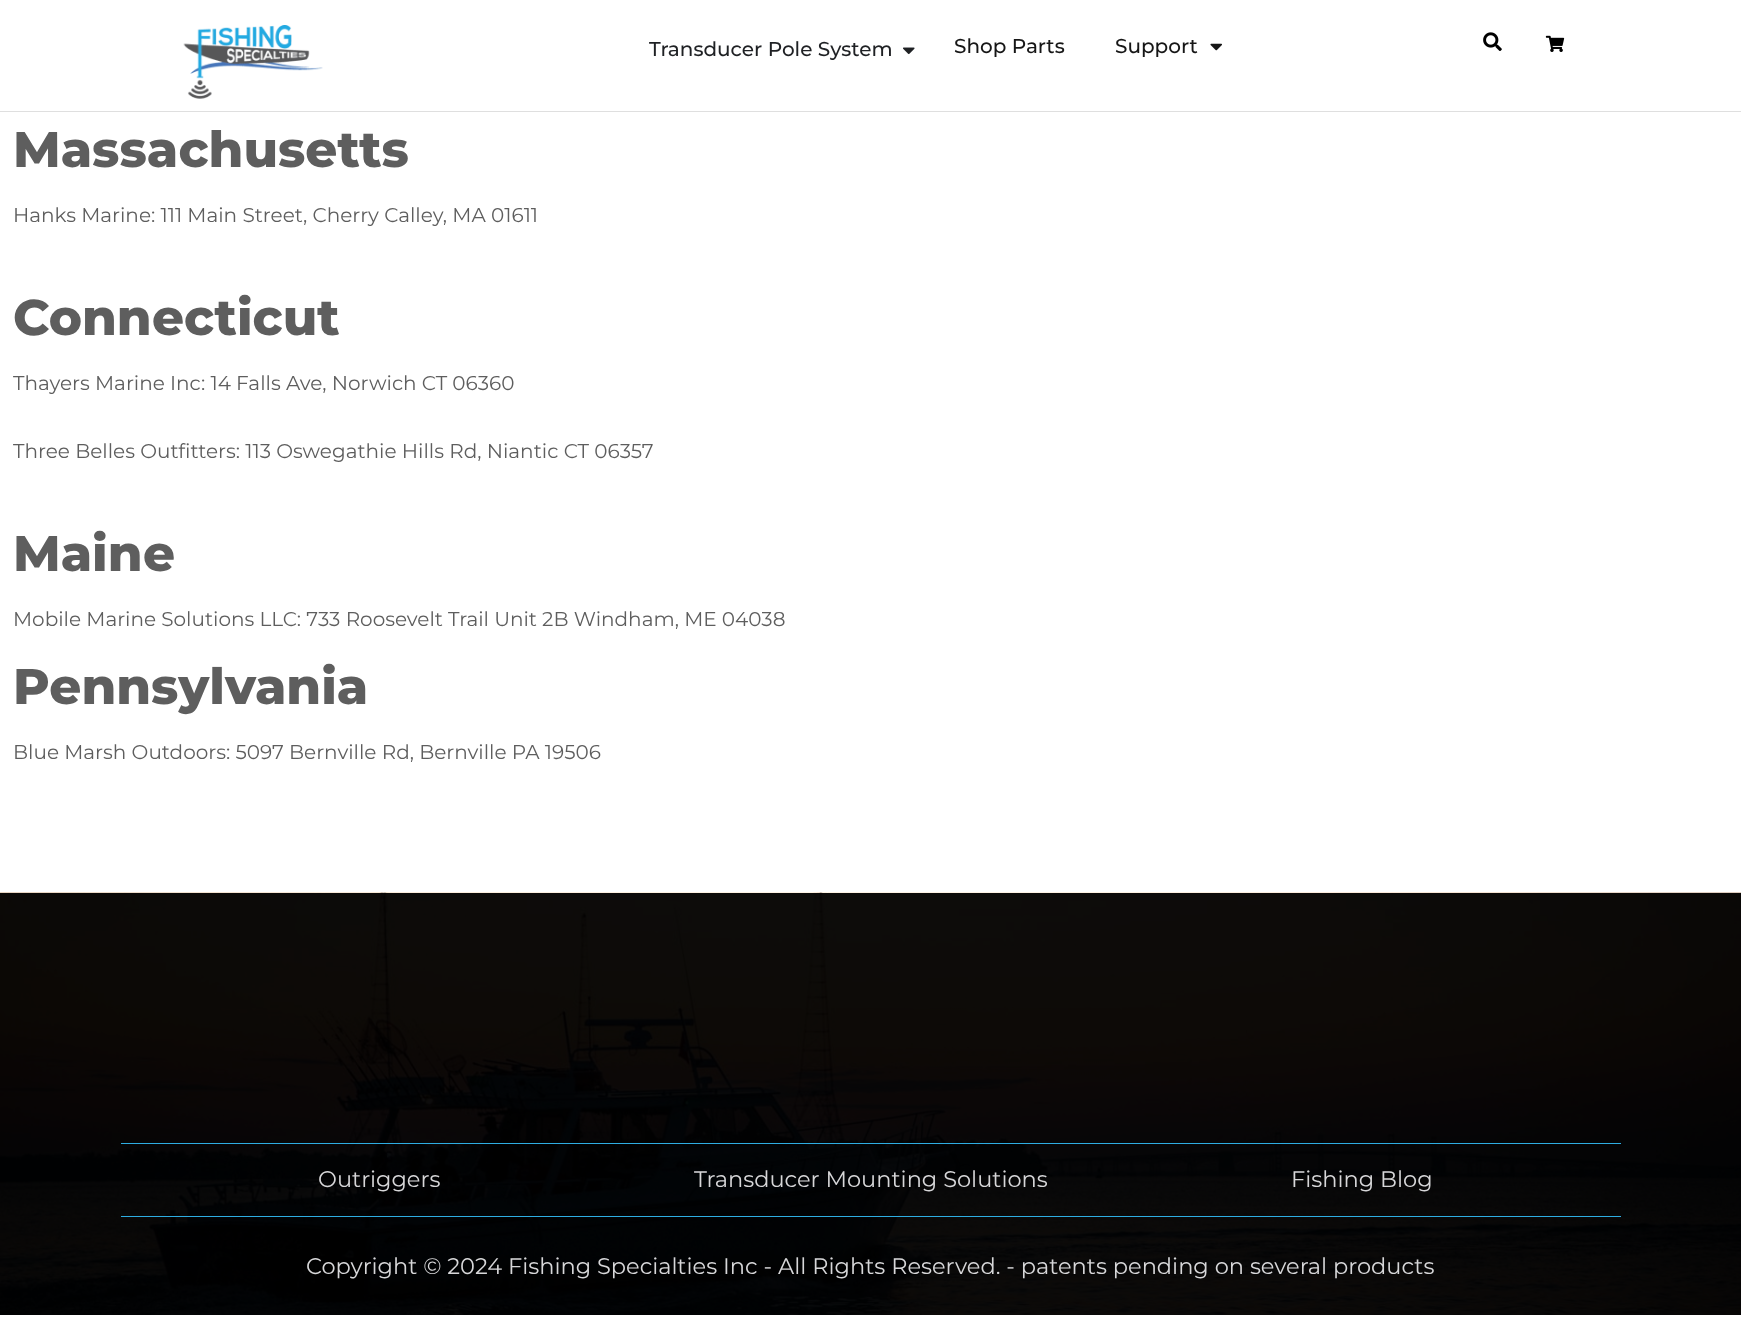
async function draw(canvas) {
  canvas.width = 1741;
  canvas.height = 1326;
  const ctx = canvas.getContext('2d');
  ctx.miterLimit = 4;
  ctx.fontKerning = 'normal';
  function label(s, x, y, font, color) {
    ctx.font = font;
    ctx.fillStyle = color;
    ctx.fillText(s, x, y);
  }
  function rect(x, y, w, h, color) {
    ctx.fillStyle = color;
    ctx.fillRect(x, y, w, h);
  }
  async function image(src, x, y, w, h) {
    const img = new Image();
    img.src = src;
    await img.decode();
    ctx.drawImage(img, x, y, w, h);
  }

  rect(0, 0, 1741, 1326, '#fff');
  rect(0, 111, 1741, 1, '#dfdfdf');
  await image('assets/img1.png', 183, 25, 140, 74);
  label('Transducer Pole System', 649, 56, '500 20px Montserrat', '#1f2124');
  await image('assets/img2.png', 903, 47, 12, 8);
  label('Shop Parts', 954, 53, '500 20px Montserrat', '#161616');
  label('Support', 1115, 53, '500 20px Montserrat', '#161616');
  await image('assets/img3.png', 1210, 43, 12, 8);
  await image('assets/img4.png', 1483, 32, 19, 19);
  await image('assets/img5.png', 1545, 35, 20, 17);
  label('Massachusetts', 13, 167, '800 50px Montserrat', '#5e5e5e');
  label('Hanks Marine: 111 Main Street, Cherry Calley, MA 01611', 13, 222, '20px Montserrat', '#5e5e5e');
  label('Connecticut', 13, 335, '800 50px Montserrat', '#5e5e5e');
  label('Thayers Marine Inc: 14 Falls Ave, Norwich CT 06360', 13, 390, '20px Montserrat', '#5e5e5e');
  label('Three Belles Outfitters: 113 Oswegathie Hills Rd, Niantic CT 06357', 13, 458, '20px Montserrat', '#5e5e5e');
  label('Maine', 13, 571, '800 50px Montserrat', '#5e5e5e');
  label('Mobile Marine Solutions LLC: 733 Roosevelt Trail Unit 2B Windham, ME 04038', 13, 626, '20px Montserrat', '#5e5e5e');
  label('Pennsylvania', 13, 704, '800 50px Montserrat', '#5e5e5e');
  label('Blue Marsh Outdoors: 5097 Bernville Rd, Bernville PA 19506', 13, 759, '20px Montserrat', '#5e5e5e');
  await image('assets/img6.png', 0, 892, 1741, 423);
  rect(121, 1143, 1500, 1, '#2eade2');
  label('Outriggers', 318, 1187, '22.5px Montserrat', '#d7d7d9');
  label('Transducer Mounting Solutions', 694, 1187, '22.5px Montserrat', '#d7d7d9');
  label('Fishing Blog', 1291, 1187, '22.5px Montserrat', '#d7d7d9');
  rect(121, 1216, 1500, 1, '#2eade2');
  label('Copyright © 2024 Fishing Specialties Inc - All Rights Reserved. - patents pending on several products', 306, 1274, '22.5px Montserrat', '#d7d7d9');
}

draw(document.querySelector('canvas'));
